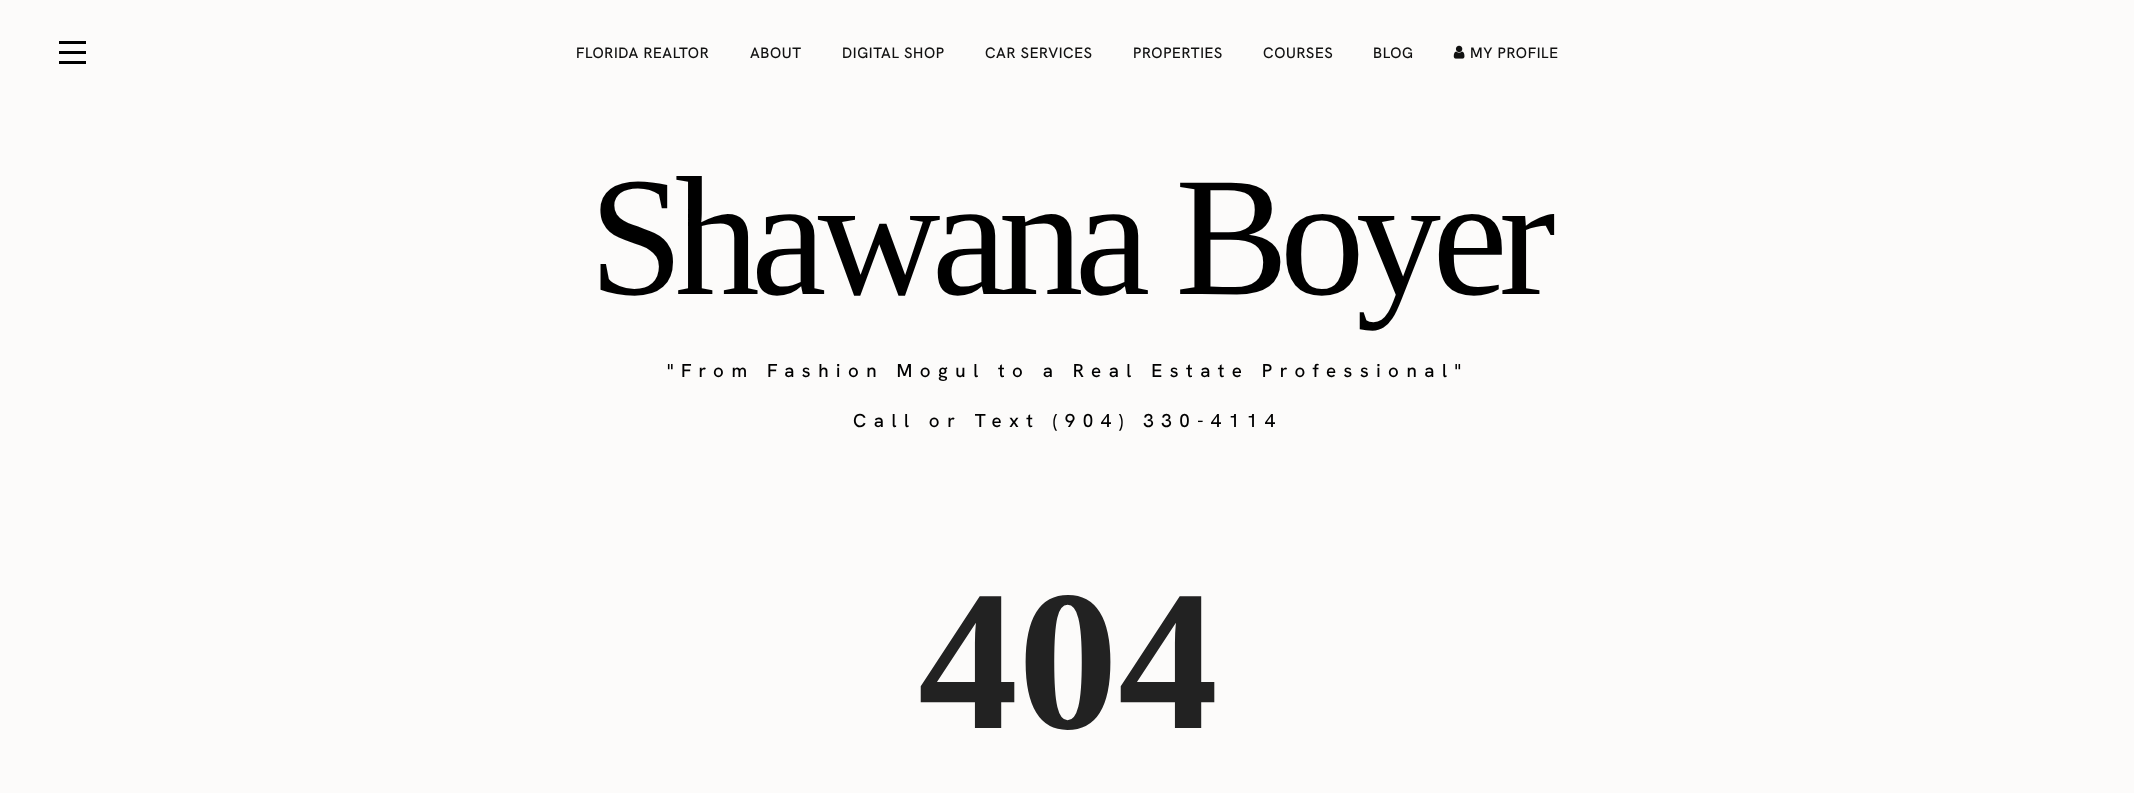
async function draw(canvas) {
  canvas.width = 2134;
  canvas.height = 793;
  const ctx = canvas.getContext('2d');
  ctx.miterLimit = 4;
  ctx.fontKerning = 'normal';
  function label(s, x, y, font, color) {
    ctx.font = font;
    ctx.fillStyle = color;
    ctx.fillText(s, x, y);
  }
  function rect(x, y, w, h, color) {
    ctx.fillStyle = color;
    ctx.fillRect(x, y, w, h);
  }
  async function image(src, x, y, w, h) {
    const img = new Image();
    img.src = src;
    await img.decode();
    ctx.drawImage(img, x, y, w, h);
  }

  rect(0, 0, 2134, 793, '#fcfbfa');
  rect(59, 51, 27, 3, '#000');
  rect(59, 41, 27, 3, '#000');
  rect(59, 61, 27, 3, '#000');
  ctx.letterSpacing = '0.6px';
  label('FLORIDA REALTOR', 576, 58, '500 15px Hanken Grotesk', '#111');
  label('ABOUT', 750, 58, '500 15px Hanken Grotesk', '#111');
  label('DIGITAL SHOP', 842, 58, '500 15px Hanken Grotesk', '#111');
  label('CAR SERVICES', 985, 58, '500 15px Hanken Grotesk', '#111');
  label('PROPERTIES', 1133, 58, '500 15px Hanken Grotesk', '#111');
  label('COURSES', 1263, 58, '500 15px Hanken Grotesk', '#111');
  label('BLOG', 1373, 58, '500 15px Hanken Grotesk', '#111');
  await image('assets/img1.png', 1453, 45, 12, 14);
  label('MY PROFILE', 1470, 58, '500 15px Hanken Grotesk', '#111');
  ctx.letterSpacing = '-8.75px';
  label('Shawana Boyer', 589, 294, '170px Liberation Serif', '#000');
  ctx.letterSpacing = '7.5px';
  label('"From Fashion Mogul to a Real Estate Professional"', 667, 377, '500 18.75px Hanken Grotesk', '#000');
  label('Call or Text (904) 330-4114', 853, 427, '500 18.75px Hanken Grotesk', '#000');
  ctx.letterSpacing = '0px';
  label('404', 918, 728, 'bold 200px Liberation Serif', '#222');
}

draw(document.querySelector('canvas'));
